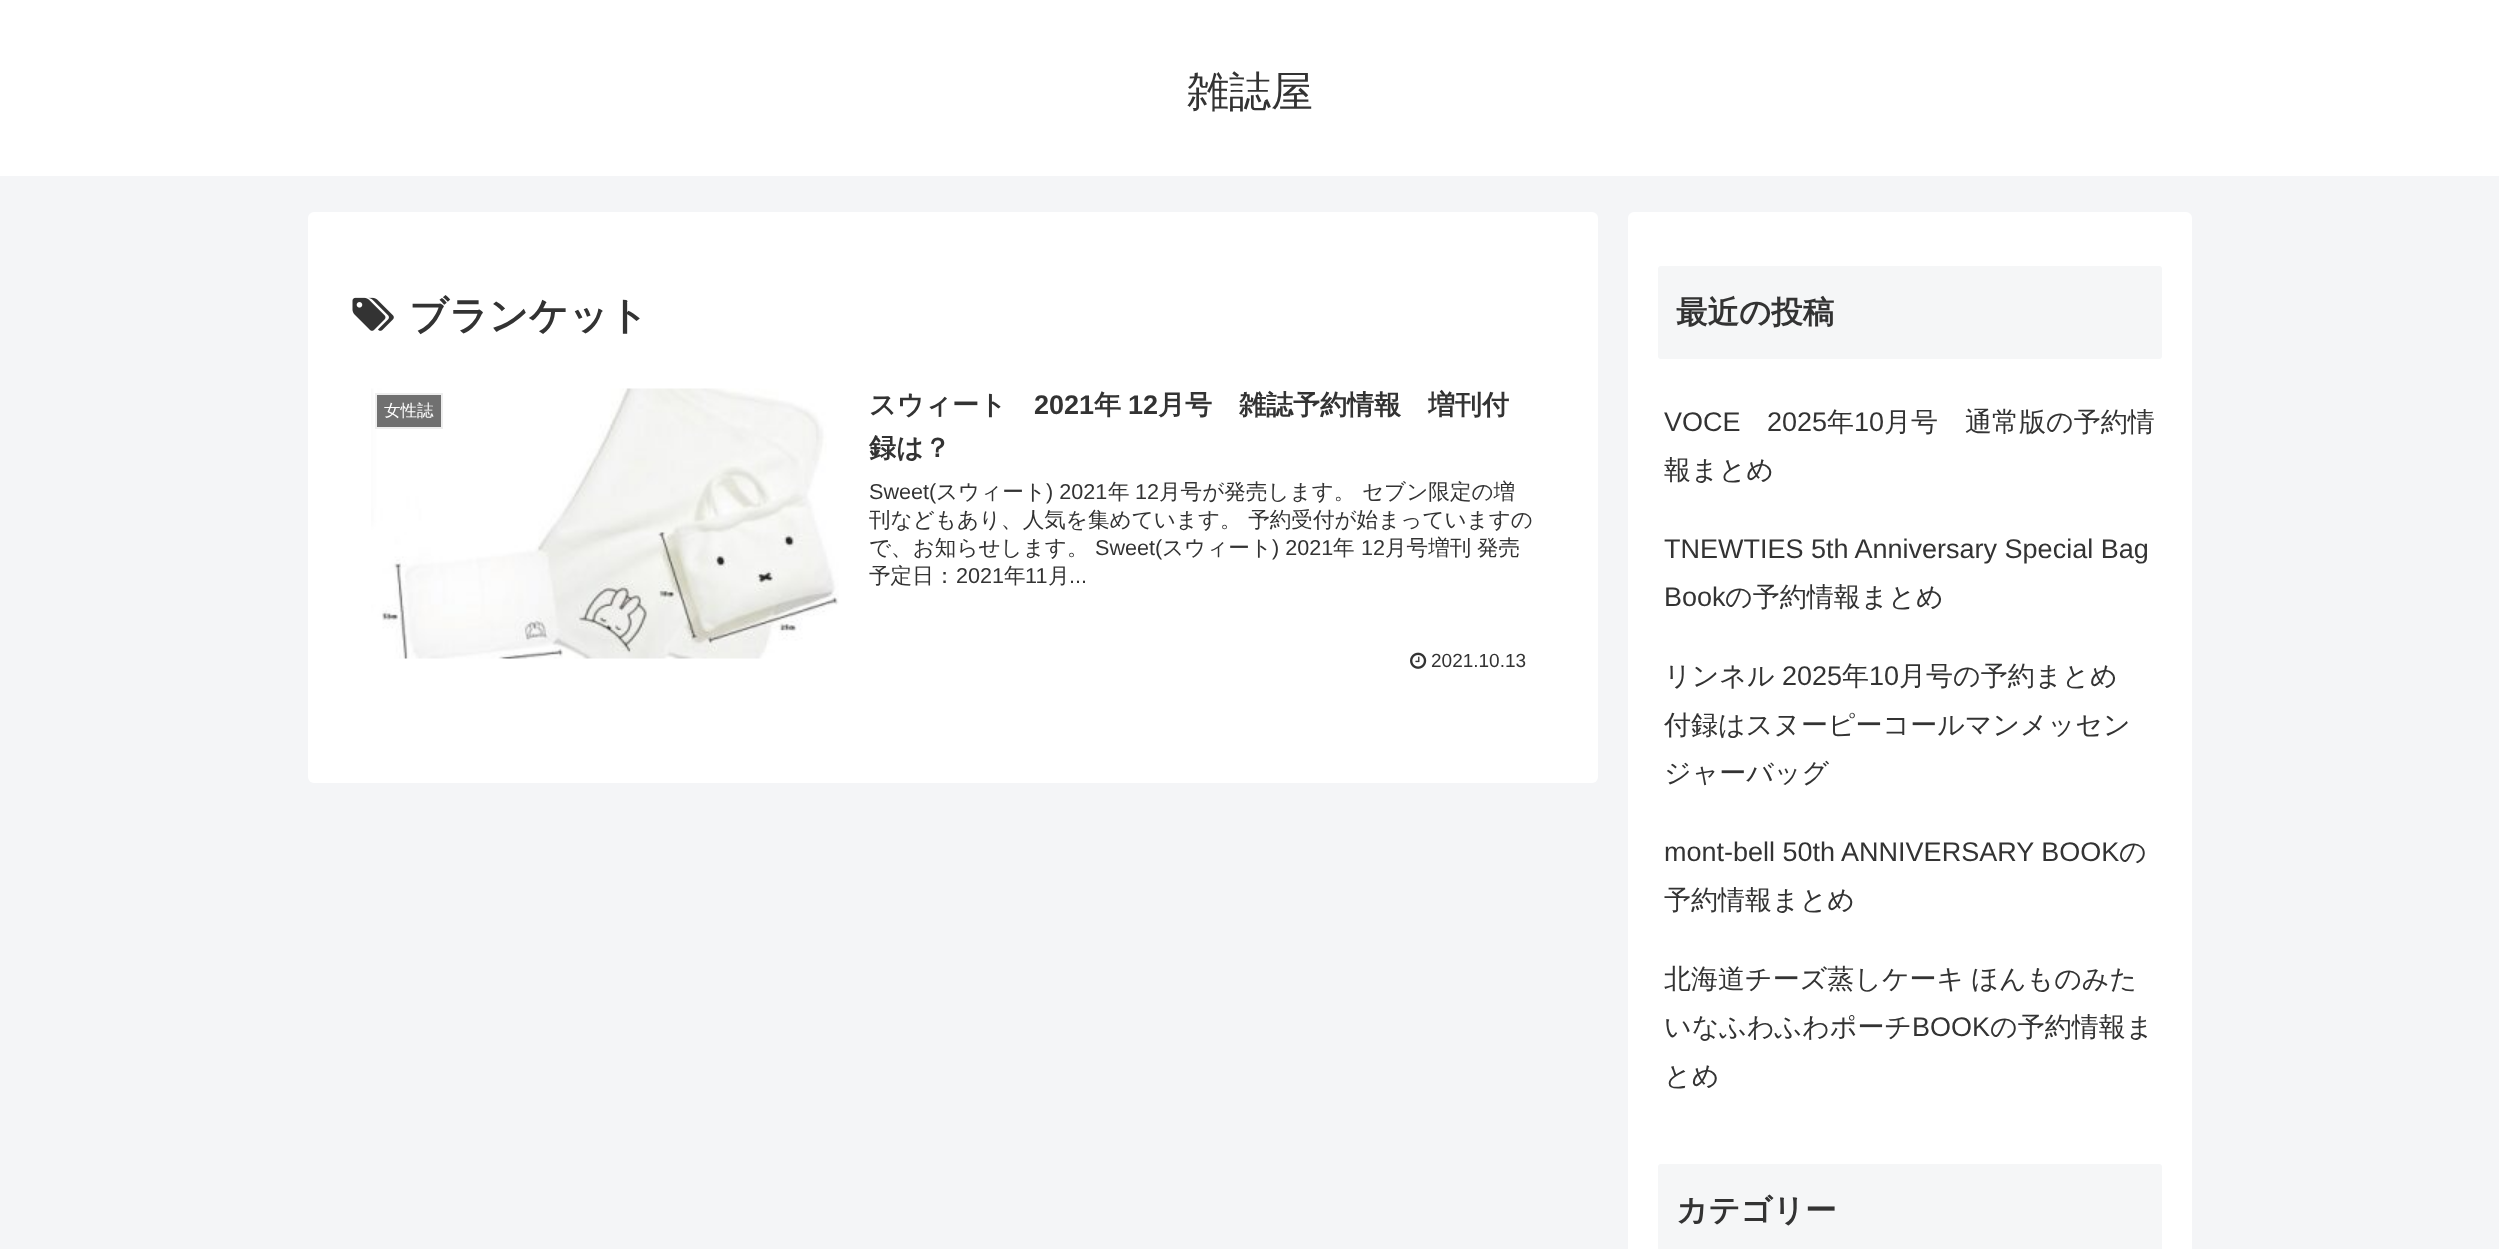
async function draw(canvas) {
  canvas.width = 2499;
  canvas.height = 1249;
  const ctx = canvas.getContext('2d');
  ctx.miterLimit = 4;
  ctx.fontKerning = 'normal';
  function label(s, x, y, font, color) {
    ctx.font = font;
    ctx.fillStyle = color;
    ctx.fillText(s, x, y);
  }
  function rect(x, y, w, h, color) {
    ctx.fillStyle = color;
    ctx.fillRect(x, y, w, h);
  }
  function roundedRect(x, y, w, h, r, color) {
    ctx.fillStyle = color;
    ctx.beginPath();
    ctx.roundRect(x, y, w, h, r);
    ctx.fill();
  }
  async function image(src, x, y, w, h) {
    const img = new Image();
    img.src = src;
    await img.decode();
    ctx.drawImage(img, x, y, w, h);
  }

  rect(0, 0, 2499, 1249, '#f4f5f7');
  rect(0, 0, 2499, 176, '#fff');
  label('雑誌屋', 1187, 106, '500 42px WenQuanYi Zen Hei', '#333');
  roundedRect(308, 212, 1290, 571, 6, '#fff');
  await image('assets/img1.png', 352, 297, 42, 34);
  label('ブランケット', 409, 329, 'bold 39px WenQuanYi Zen Hei', '#333');
  await image('assets/img2.png', 371, 388, 468, 271);
  ctx.fillStyle = '#707070';
  ctx.beginPath();
  ctx.rect(376, 394, 66, 34);
  ctx.fill();
  ctx.strokeStyle = '#eee';
  ctx.lineWidth = 2;
  ctx.stroke();
  label('女性誌', 384, 416, '500 16.5px WenQuanYi Zen Hei', '#fff');
  label('スウィート', 869, 414, 'bold 27px WenQuanYi Zen Hei', '#333');
  label('2021', 1034, 414, 'bold 27px Liberation Sans', '#333');
  label('年', 1094, 414, 'bold 27px WenQuanYi Zen Hei', '#333');
  label('12', 1128, 414, 'bold 27px Liberation Sans', '#333');
  label('月号　雑誌予約情報　増刊付', 1158, 414, 'bold 27px WenQuanYi Zen Hei', '#333');
  label('録は？', 869, 457, 'bold 27px WenQuanYi Zen Hei', '#333');
  label('Sweet(', 869, 499, '21.6px Liberation Sans', '#333');
  label('スウィート', 936, 499, '500 21.6px WenQuanYi Zen Hei', '#333');
  label(') 2021', 1046, 499, '21.6px Liberation Sans', '#333');
  label('年', 1108, 499, '500 21.6px WenQuanYi Zen Hei', '#333');
  label('12', 1135, 499, '21.6px Liberation Sans', '#333');
  label('月号が発売します。', 1159, 499, '500 21.6px WenQuanYi Zen Hei', '#333');
  label('セブン限定の増', 1362, 499, '500 21.6px WenQuanYi Zen Hei', '#333');
  label('刊などもあり、人気を集めています。 予約受付が始まっていますの', 869, 527, '500 21.6px WenQuanYi Zen Hei', '#333');
  label('で、お知らせします。', 869, 555, '500 21.6px WenQuanYi Zen Hei', '#333');
  label('Sweet(', 1095, 555, '21.6px Liberation Sans', '#333');
  label('スウィート', 1162, 555, '500 21.6px WenQuanYi Zen Hei', '#333');
  label(') 2021', 1272, 555, '21.6px Liberation Sans', '#333');
  label('年', 1333, 555, '500 21.6px WenQuanYi Zen Hei', '#333');
  label('12', 1361, 555, '21.6px Liberation Sans', '#333');
  label('月号増刊', 1385, 555, '500 21.6px WenQuanYi Zen Hei', '#333');
  label('発売', 1477, 555, '500 21.6px WenQuanYi Zen Hei', '#333');
  label('予定日：', 869, 583, '500 21.6px WenQuanYi Zen Hei', '#333');
  label('2021', 956, 583, '21.6px Liberation Sans', '#333');
  label('年', 1004, 583, '500 21.6px WenQuanYi Zen Hei', '#333');
  label('11', 1025, 583, '21.6px Liberation Sans', '#333');
  label('月', 1048, 583, '500 21.6px WenQuanYi Zen Hei', '#333');
  label('...', 1069, 583, '21.6px Liberation Sans', '#333');
  await image('assets/img3.png', 1410, 652, 17, 17);
  label('2021.10.13', 1431, 667, '19px Liberation Sans', '#333');
  roundedRect(1628, 212, 564, 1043, 6, '#fff');
  roundedRect(1658, 266, 504, 93, 3, '#f5f6f7');
  label('最近の投稿', 1676, 323, 'bold 31.5px WenQuanYi Zen Hei', '#333');
  label('VOCE', 1664, 431, '27px Liberation Sans', '#333');
  label('2025', 1767, 431, '27px Liberation Sans', '#333');
  label('年', 1827, 431, '500 27px WenQuanYi Zen Hei', '#333');
  label('10', 1854, 431, '27px Liberation Sans', '#333');
  label('月号　通常版の予約情', 1884, 431, '500 27px WenQuanYi Zen Hei', '#333');
  label('報まとめ', 1664, 479, '500 27px WenQuanYi Zen Hei', '#333');
  label('TNEWTIES 5th Anniversary Special Bag', 1664, 558, '27px Liberation Sans', '#333');
  label('Book', 1664, 606, '27px Liberation Sans', '#333');
  label('の予約情報まとめ', 1725, 606, '500 27px WenQuanYi Zen Hei', '#333');
  label('リンネル', 1664, 685, '500 27px WenQuanYi Zen Hei', '#333');
  label('2025', 1782, 685, '27px Liberation Sans', '#333');
  label('年', 1842, 685, '500 27px WenQuanYi Zen Hei', '#333');
  label('10', 1869, 685, '27px Liberation Sans', '#333');
  label('月号の予約まとめ', 1899, 685, '500 27px WenQuanYi Zen Hei', '#333');
  label('付録はスヌーピーコールマンメッセン', 1664, 734, '500 27px WenQuanYi Zen Hei', '#333');
  label('ジャーバッグ', 1664, 782, '500 27px WenQuanYi Zen Hei', '#333');
  label('mont-bell 50th ANNIVERSARY BOOK', 1664, 861, '27px Liberation Sans', '#333');
  label('の', 2119, 861, '500 27px WenQuanYi Zen Hei', '#333');
  label('予約情報まとめ', 1664, 909, '500 27px WenQuanYi Zen Hei', '#333');
  ctx.wordSpacing = '-1px';
  label('北海道チーズ蒸しケーキ ほんものみた', 1664, 988, '500 27px WenQuanYi Zen Hei', '#333');
  ctx.wordSpacing = '0px';
  label('いなふわふわポーチ', 1664, 1036, '500 27px WenQuanYi Zen Hei', '#333');
  label('BOOK', 1912, 1036, '27px Liberation Sans', '#333');
  label('の予約情報ま', 1990, 1036, '500 27px WenQuanYi Zen Hei', '#333');
  label('とめ', 1664, 1085, '500 27px WenQuanYi Zen Hei', '#333');
  roundedRect(1658, 1164, 504, 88, 3, '#f5f6f7');
  label('カテゴリー', 1676, 1221, 'bold 31.5px WenQuanYi Zen Hei', '#333');
}

draw(document.querySelector('canvas'));
